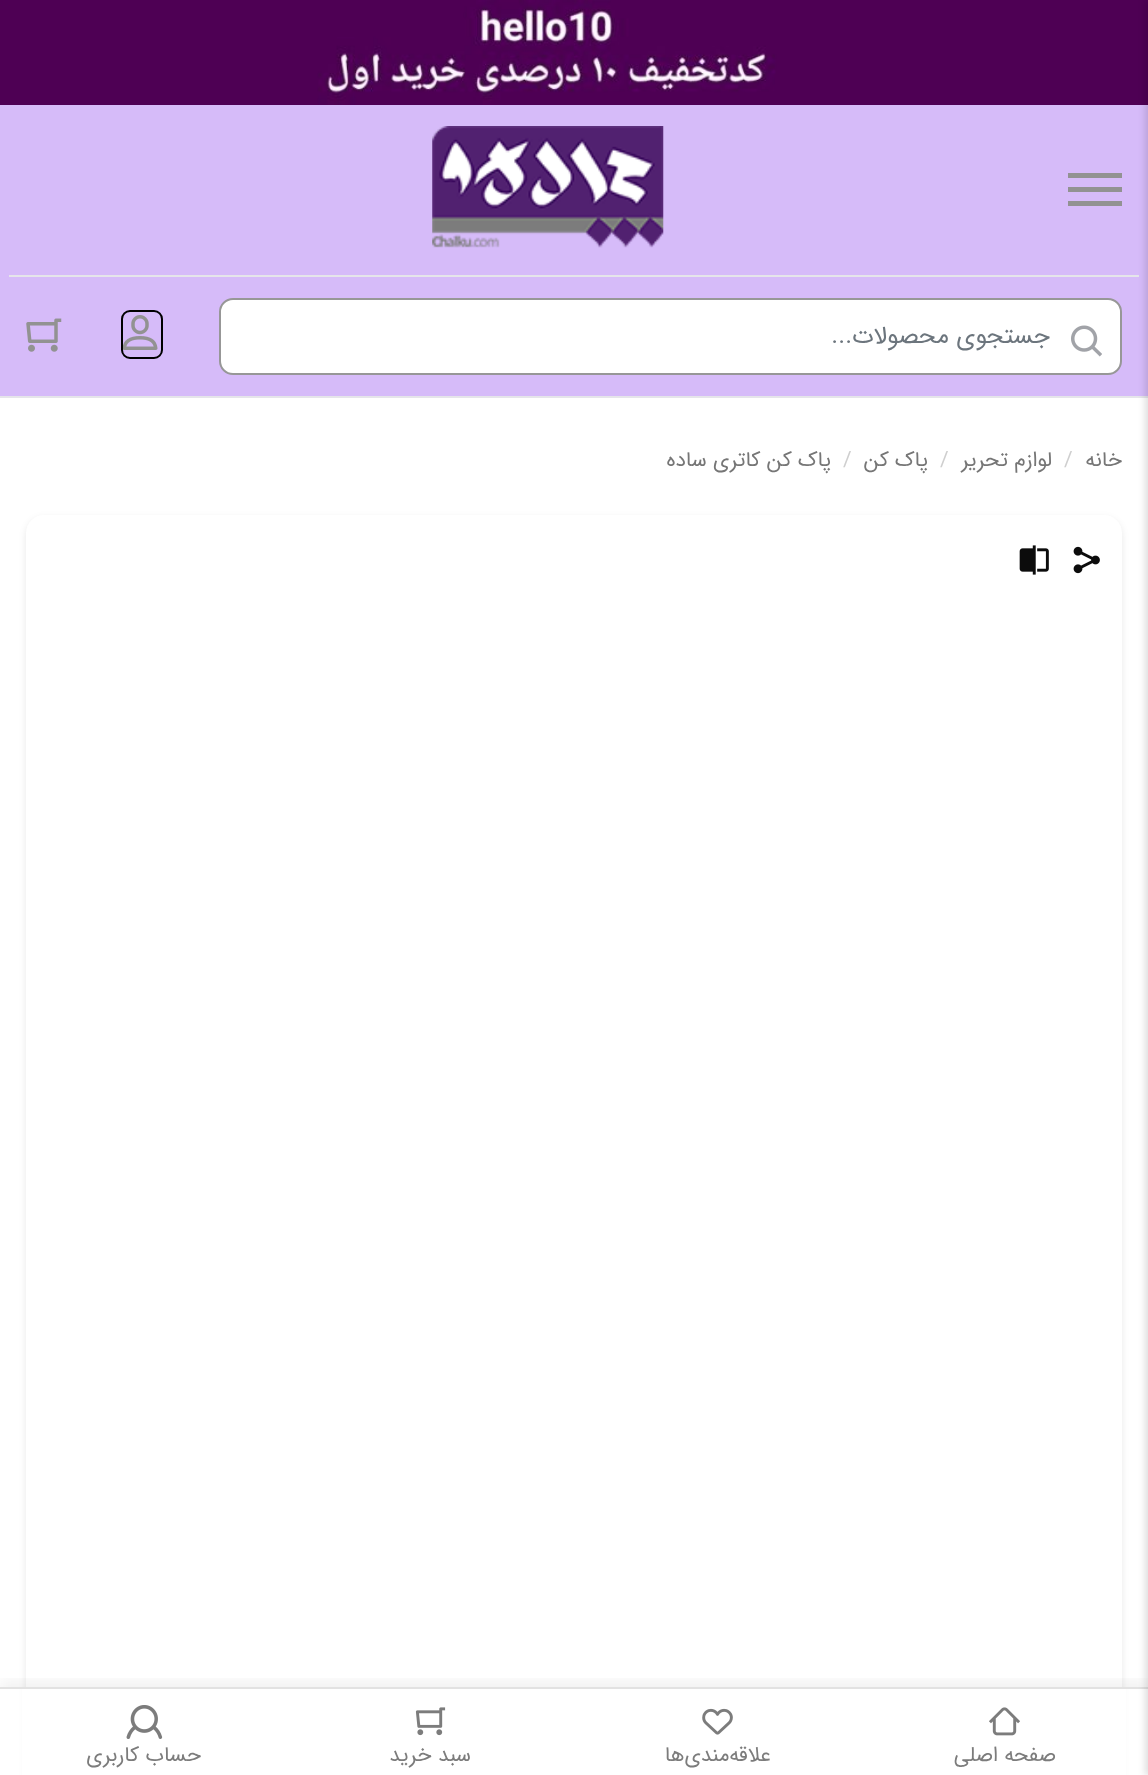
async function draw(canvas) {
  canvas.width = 1148;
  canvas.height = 1775;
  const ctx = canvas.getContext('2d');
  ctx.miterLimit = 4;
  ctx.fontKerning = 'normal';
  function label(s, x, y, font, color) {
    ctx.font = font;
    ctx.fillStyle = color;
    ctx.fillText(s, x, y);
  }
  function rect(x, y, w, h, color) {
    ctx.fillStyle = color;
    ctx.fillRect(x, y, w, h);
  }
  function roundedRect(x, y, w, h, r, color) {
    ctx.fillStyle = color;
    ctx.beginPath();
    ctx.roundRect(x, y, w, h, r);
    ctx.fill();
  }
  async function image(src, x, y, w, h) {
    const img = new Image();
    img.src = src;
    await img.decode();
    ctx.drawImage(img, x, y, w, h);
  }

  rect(0, 0, 1148, 1775, '#fff');
  await image('assets/img1.png', 0, 0, 1148, 105);
  rect(0, 105, 1148, 291, '#d6bbf9');
  rect(0, 396, 1148, 2, '#e5e5ea');
  rect(9, 275, 1130, 2, '#e5e5ea');
  ctx.fillStyle = '#00000017';
  ctx.filter = 'blur(3.5px)';
  ctx.beginPath();
  ctx.roundRect(26, 518, 1096, 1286, 18);
  ctx.fill();
  ctx.filter = 'none';
  roundedRect(26, 515, 1096, 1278, 18, '#fff');
  ctx.save();
  ctx.beginPath();
  ctx.rect(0, 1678, 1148, 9);
  ctx.clip();
  ctx.fillStyle = '#0000000d';
  ctx.filter = 'blur(7px)';
  ctx.beginPath();
  ctx.rect(0, 1680, 1148, 89);
  ctx.fill();
  ctx.filter = 'none';
  ctx.restore();
  rect(0, 1687, 1148, 2, '#e2e2e2');
  ctx.fillStyle = '#00000021';
  ctx.filter = 'blur(3.5px)';
  ctx.beginPath();
  ctx.rect(1145, 0, 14, 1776);
  ctx.fill();
  ctx.filter = 'none';
  rect(1068, 187, 54, 5, '#929292');
  rect(1068, 173, 54, 5, '#929292');
  rect(1068, 201, 54, 5, '#929292');
  await image('assets/img2.png', 432, 126, 232, 122);
  ctx.fillStyle = '#fff';
  ctx.beginPath();
  ctx.roundRect(220, 299, 901, 75, 13);
  ctx.fill();
  ctx.strokeStyle = '#979797';
  ctx.lineWidth = 2;
  ctx.stroke();
  await image('assets/img3.png', 1071, 325, 31, 32);
  ctx.direction = 'rtl';
  label('جستجوی محصولات...', 1050, 343, '24.5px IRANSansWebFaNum', '#6c757d');
  ctx.beginPath();
  ctx.roundRect(122, 311, 40, 47, 8);
  ctx.strokeStyle = '#000';
  ctx.stroke();
  await image('assets/img4.png', 123, 315, 35, 35);
  await image('assets/img5.png', 26, 318, 36, 34);
  label('خانه', 1122, 466, '21px IRANSansWebFaNum', '#767676');
  ctx.direction = 'ltr';
  label('/', 1064, 466, '21px IRANSansWebFaNum', '#cfcfcf');
  ctx.direction = 'rtl';
  label('لوازم تحریر', 1052, 466, '21px IRANSansWebFaNum', '#767676');
  ctx.direction = 'ltr';
  label('/', 940, 466, '21px IRANSansWebFaNum', '#cfcfcf');
  ctx.direction = 'rtl';
  label('پاک کن', 928, 466, '21px IRANSansWebFaNum', '#767676');
  ctx.direction = 'ltr';
  label('/', 843, 466, '21px IRANSansWebFaNum', '#cfcfcf');
  ctx.direction = 'rtl';
  label('پاک کن کاتری ساده', 831, 466, '21px IRANSansWebFaNum', '#767676');
  await image('assets/img6.png', 1073, 546, 27, 28);
  await image('assets/img7.png', 1019, 545, 30, 30);
  rect(22, 1689, 1104, 86, '#fffffff2');
  await image('assets/img8.png', 989, 1707, 31, 29);
  label('صفحه اصلی', 1056, 1761, '21px IRANSansWebFaNum', '#7c7c7c');
  await image('assets/img9.png', 702, 1708, 31, 27);
  label('علاقه‌مندی‌ها', 771, 1761, '21px IRANSansWebFaNum', '#7c7c7c');
  await image('assets/img10.png', 415, 1707, 31, 29);
  label('سبد خرید', 471, 1761, '21px IRANSansWebFaNum', '#7c7c7c');
  await image('assets/img11.png', 126, 1705, 37, 34);
  label('حساب کاربری', 201, 1761, '21px IRANSansWebFaNum', '#7c7c7c');
}

draw(document.querySelector('canvas'));
